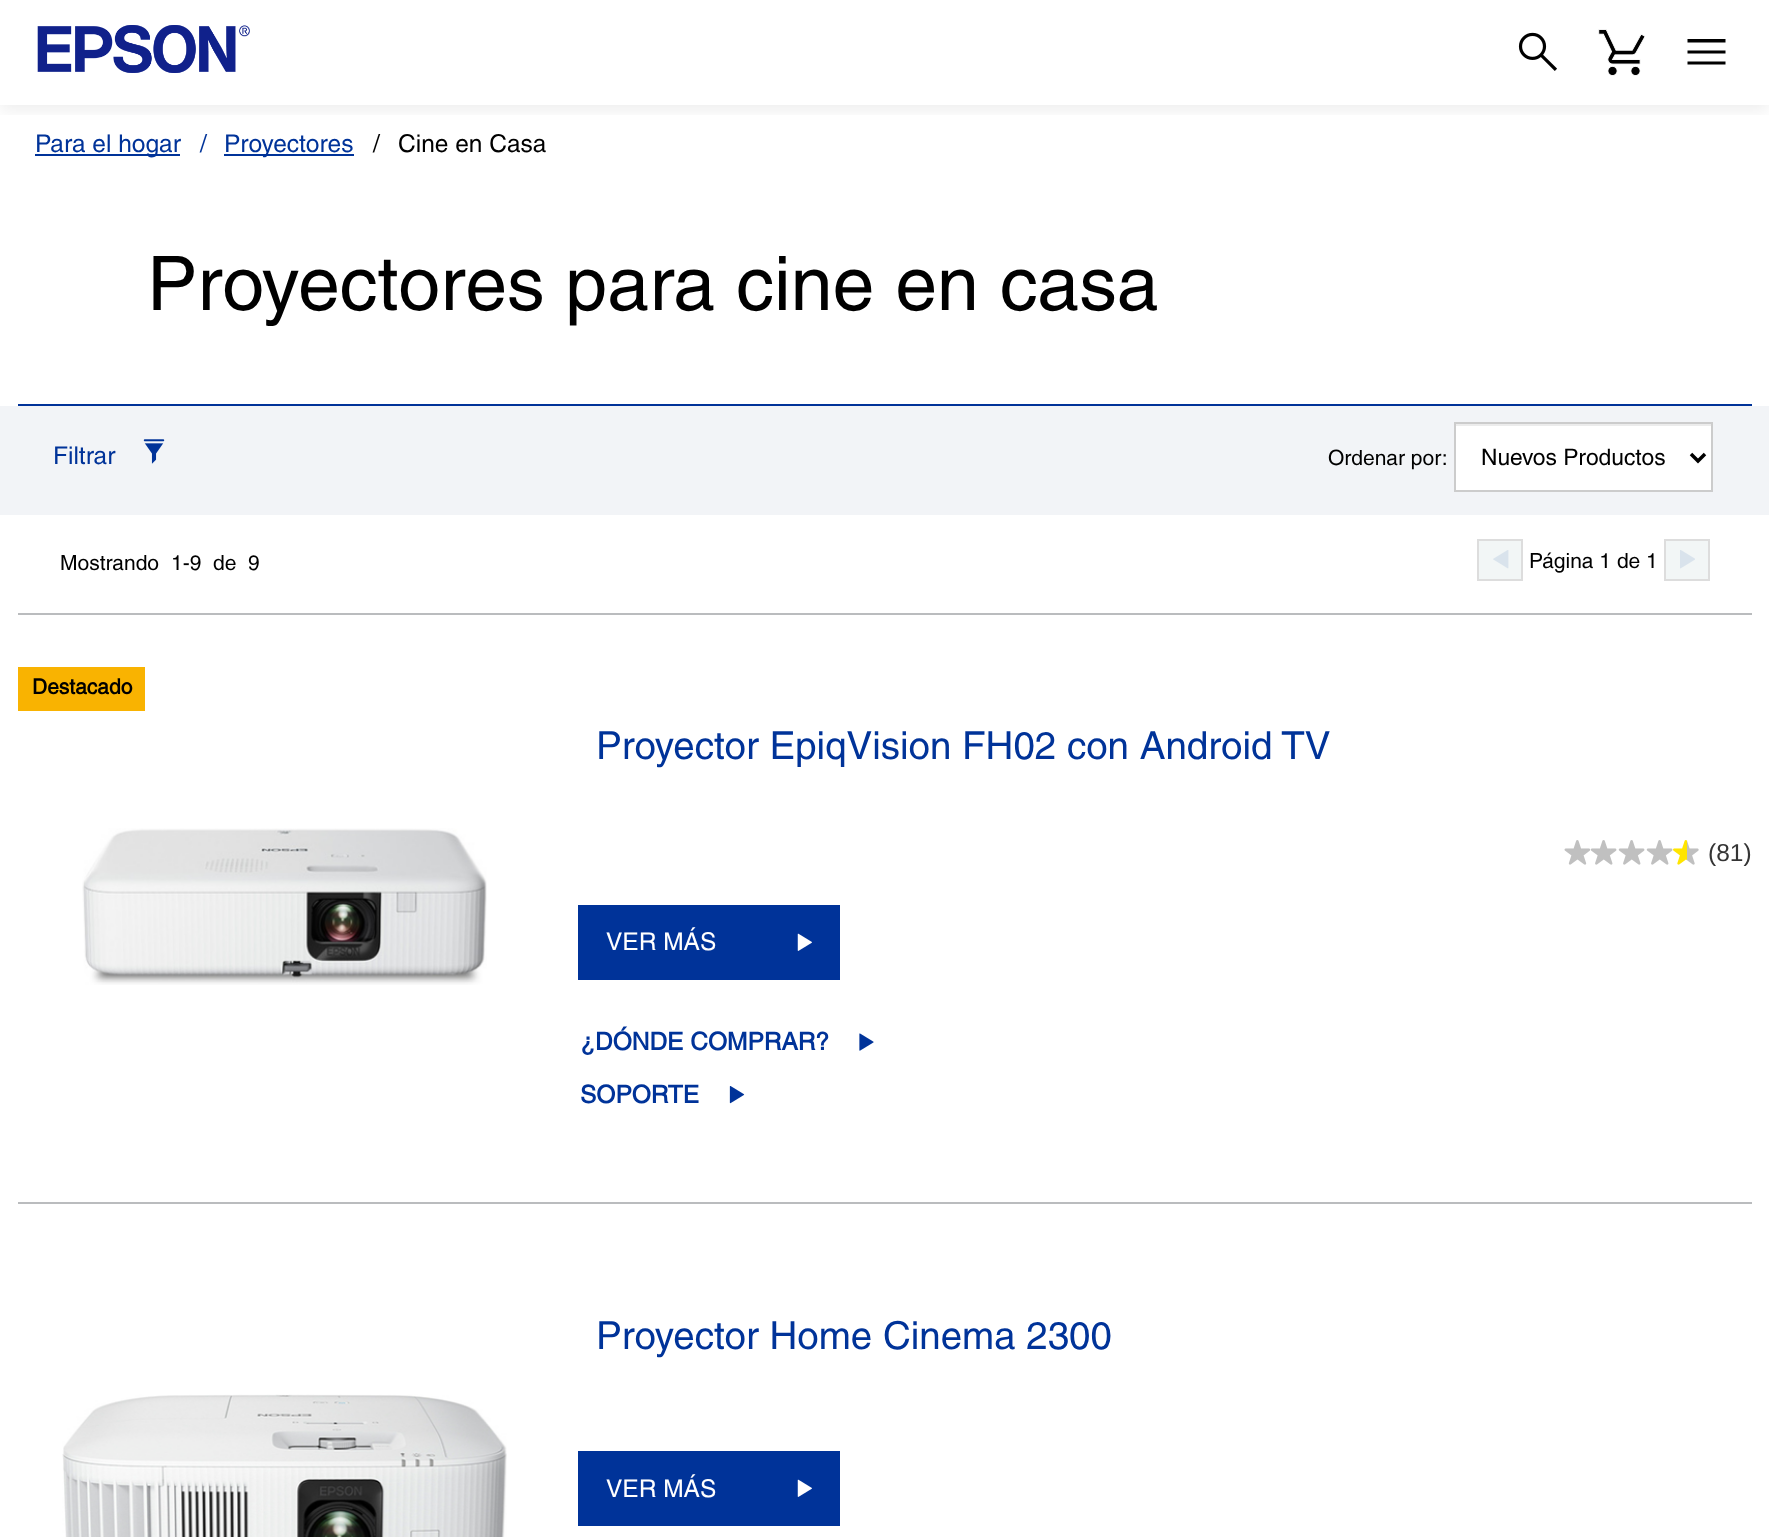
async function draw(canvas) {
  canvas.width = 1769;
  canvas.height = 1537;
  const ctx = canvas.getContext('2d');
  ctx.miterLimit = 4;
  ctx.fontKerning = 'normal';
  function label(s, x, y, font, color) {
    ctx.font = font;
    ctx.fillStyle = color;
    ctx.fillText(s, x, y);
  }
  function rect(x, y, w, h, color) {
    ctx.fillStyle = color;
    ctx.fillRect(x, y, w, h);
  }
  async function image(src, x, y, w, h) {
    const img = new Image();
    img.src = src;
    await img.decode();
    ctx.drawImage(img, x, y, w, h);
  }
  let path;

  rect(0, 0, 1769, 1537, '#fff');
  ctx.save();
  ctx.beginPath();
  ctx.rect(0, 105, 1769, 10);
  ctx.clip();
  ctx.fillStyle = '#00000014';
  ctx.filter = 'blur(9px)';
  ctx.beginPath();
  ctx.rect(0, 4, 1769, 105);
  ctx.fill();
  ctx.filter = 'none';
  ctx.restore();
  await image('assets/img1.png', 37, 25, 213, 48);
  await image('assets/img2.png', 1518, 32, 39, 39);
  await image('assets/img3.png', 1598, 29, 47, 47);
  ctx.fillStyle = '#000';
  path = new Path2D('M1687.5 64.5V61.5H1725.5V64.5ZM1687.5 53.5V50.5H1725.5V53.5ZM1687.5 42.5V39H1725.5V42.5Z');
  ctx.fill(path);
  rect(35, 154, 145, 2, '#039');
  label('Para el hogar', 35, 152, '24.5px Helvetica', '#039');
  label('/', 200, 152, '24.5px Helvetica', '#039');
  rect(224, 154, 130, 2, '#039');
  label('Proyectores', 224, 152, '24.5px Helvetica', '#039');
  label('/', 373, 152, '24.5px Helvetica', '#000');
  label('Cine en Casa', 398, 152, '24.5px Helvetica', '#000');
  label('Proyectores para cine en casa', 147, 310, '75.25px Helvetica', '#000');
  rect(18, 404, 1734, 2, '#039');
  rect(0, 406, 1769, 109, '#f2f4f7');
  label('Filtrar', 53, 464, '24.5px Helvetica', '#039');
  await image('assets/img4.png', 143, 439, 22, 25);
  label('Ordenar por:', 1328, 465, '21px Helvetica', '#000');
  rect(1456, 426, 255, 64, '#fff');
  rect(1456, 424, 256, 2, '#ececec');
  ctx.strokeStyle = '#ccc';
  ctx.lineWidth = 2;
  ctx.strokeRect(1455, 423, 257, 68);
  path = new Path2D('M1691 454L1698 461L1705 454');
  ctx.strokeStyle = '#000';
  ctx.lineWidth = 3.5;
  ctx.stroke(path);
  label('Nuevos Productos', 1481, 465, '22.75px Helvetica', '#000');
  label('Mostrando', 60, 570, '21px Helvetica', '#000');
  label('1-9', 171, 570, '21px Helvetica', '#000');
  label('de', 213, 570, '21px Helvetica', '#000');
  label('9', 248, 570, '21px Helvetica', '#000');
  ctx.fillStyle = '#f2f6f6';
  ctx.beginPath();
  ctx.rect(1478, 540, 44, 40);
  ctx.fill();
  ctx.strokeStyle = '#ddd';
  ctx.lineWidth = 2;
  ctx.stroke();
  await image('assets/img5.png', 1493, 550, 16, 19);
  label('Página 1 de 1', 1529, 568, '21px Helvetica', '#000');
  ctx.fillStyle = '#f2f6f6';
  ctx.beginPath();
  ctx.rect(1665, 540, 44, 40);
  ctx.fill();
  ctx.stroke();
  await image('assets/img6.png', 1680, 550, 15, 19);
  rect(18, 613, 1734, 2, '#babcbe');
  rect(18, 667, 127, 44, '#f9b301');
  label('Destacado', 32, 694, 'bold 21px Helvetica', '#000');
  await image('assets/img7.png', 82, 828, 405, 157);
  label('Proyector EpiqVision FH02 con Android TV', 596, 759, '38.5px Helvetica', '#039');
  await image('assets/img8.png', 1564, 840, 27, 25);
  await image('assets/img9.png', 1590, 840, 27, 25);
  await image('assets/img10.png', 1618, 840, 27, 25);
  await image('assets/img10.png', 1646, 840, 27, 25);
  await image('assets/img11.png', 1673, 840, 26, 25);
  label('(81)', 1708, 861, '24.5px Liberation Sans', '#353535');
  rect(578, 905, 262, 75, '#039');
  label('VER MÁS', 606, 950, '24.5px Helvetica', '#fff');
  await image('assets/img12.png', 797, 933, 15, 18);
  label('¿DÓNDE COMPRAR?', 580, 1050, 'bold 24.5px Helvetica', '#039');
  await image('assets/img13.png', 859, 1033, 15, 18);
  label('SOPORTE', 580, 1103, 'bold 24.5px Helvetica', '#039');
  await image('assets/img14.png', 729, 1086, 16, 18);
  rect(18, 1202, 1734, 2, '#babcbe');
  await image('assets/img15.png', 62, 1394, 445, 143);
  label('Proyector Home Cinema 2300', 596, 1349, '38.5px Helvetica', '#039');
  rect(578, 1451, 262, 75, '#039');
  label('VER MÁS', 606, 1497, '24.5px Helvetica', '#fff');
  await image('assets/img12.png', 797, 1479, 15, 18);
}

draw(document.querySelector('canvas'));
